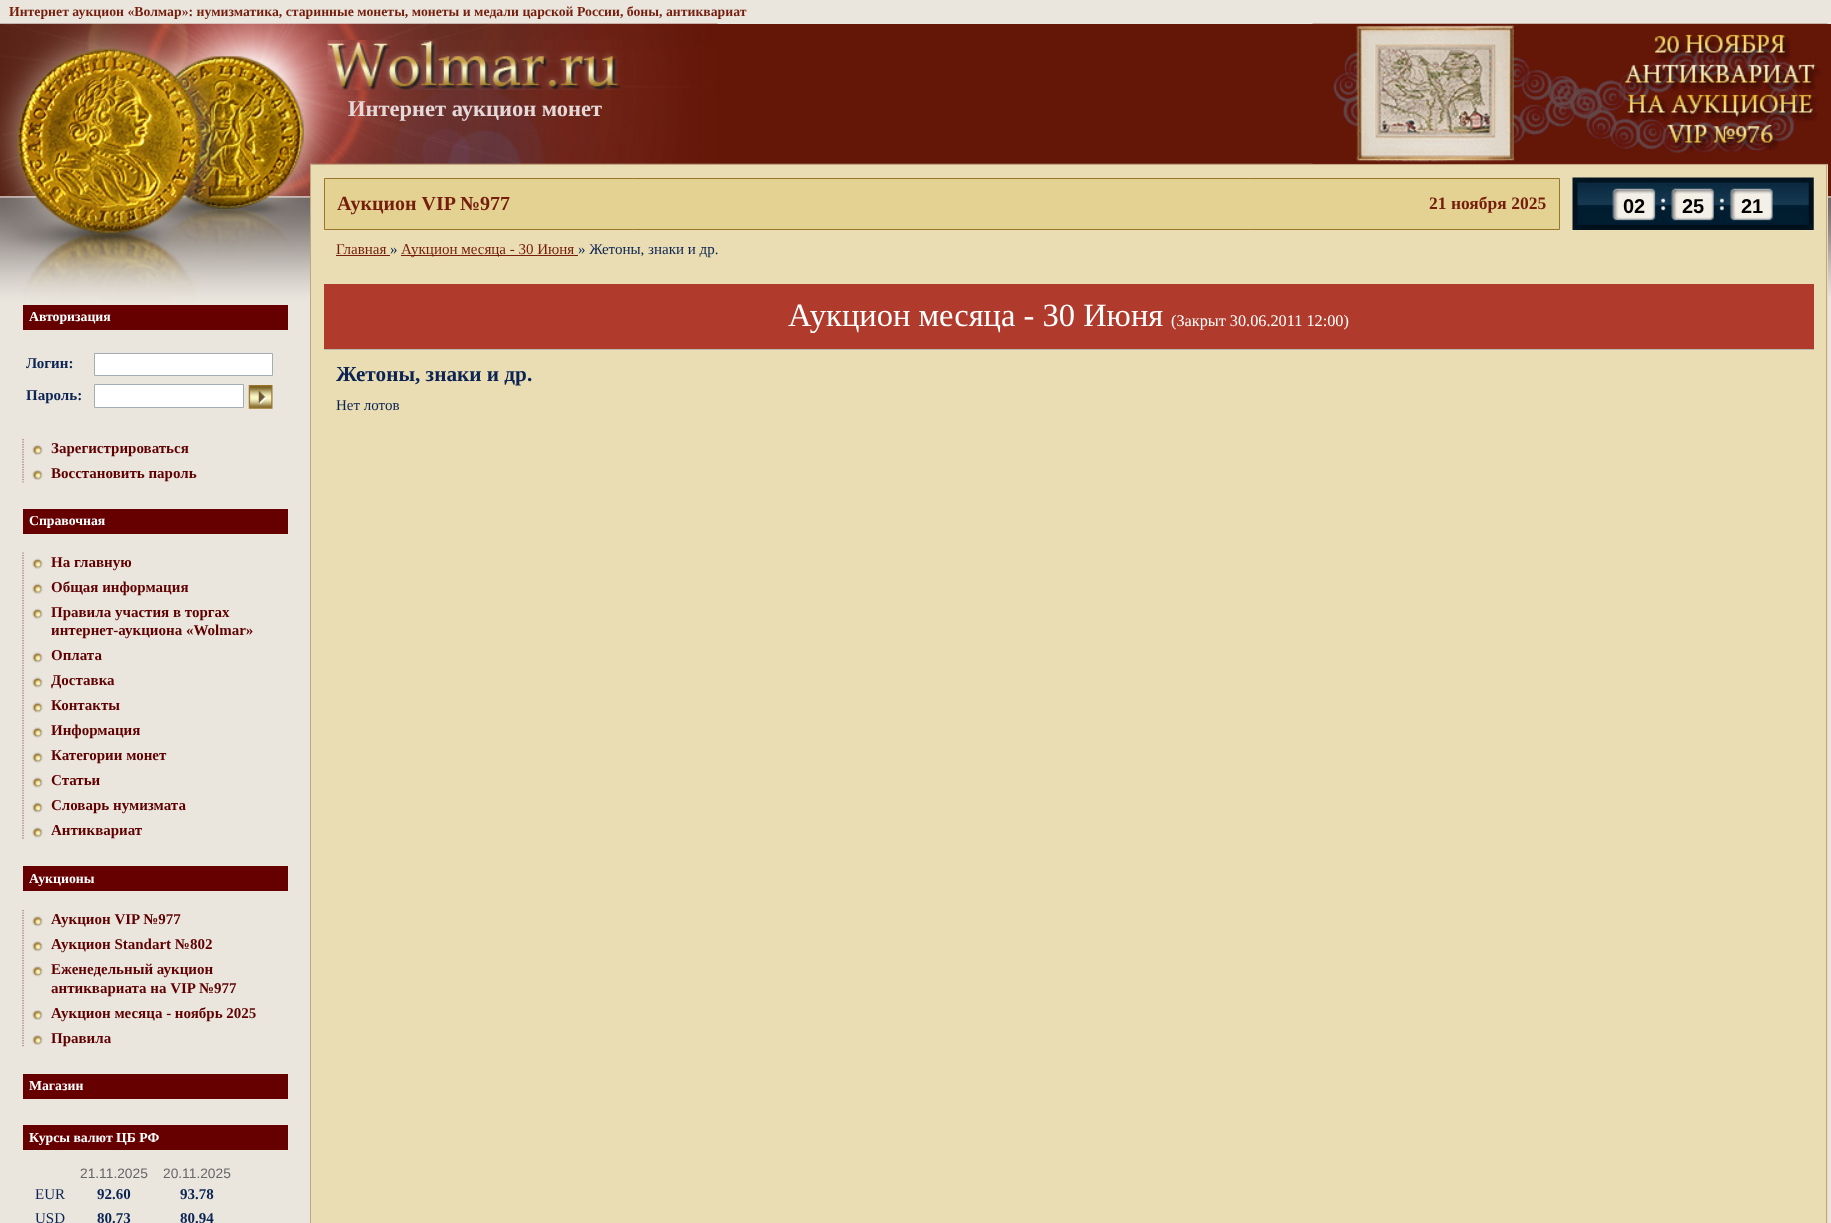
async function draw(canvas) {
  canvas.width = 1831;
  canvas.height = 1223;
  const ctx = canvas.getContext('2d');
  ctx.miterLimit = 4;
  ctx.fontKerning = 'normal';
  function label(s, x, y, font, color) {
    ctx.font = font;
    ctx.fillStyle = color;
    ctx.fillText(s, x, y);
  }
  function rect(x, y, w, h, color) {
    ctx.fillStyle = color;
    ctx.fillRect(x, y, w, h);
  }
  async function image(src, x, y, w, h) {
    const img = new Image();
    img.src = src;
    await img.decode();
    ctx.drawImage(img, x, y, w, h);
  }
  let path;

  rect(0, 0, 1831, 1223, '#eae6de');
  await image('assets/img1.png', 717, 24, 1114, 272);
  label('Интернет аукцион «Волмар»: нумизматика, старинные монеты, монеты и медали царской России, боны, антиквариат', 9, 16, 'bold 13.75px Liberation Serif', '#751e0d');
  await image('assets/img2.png', 0, 23, 1828, 280);
  await image('assets/img3.png', 327, 40, 295, 50);
  label('Интернет аукцион монет', 348, 116, 'bold 22.5px Liberation Serif', '#e4d9d8');
  await image('assets/img4.png', 1312, 23, 516, 141);
  rect(23, 305, 265, 25, '#600');
  label('Авторизация', 29, 321, 'bold 13.75px Liberation Serif', '#fff');
  label('Логин:', 26, 368, 'bold 15px Liberation Serif', '#0b2453');
  ctx.fillStyle = '#fff';
  ctx.beginPath();
  ctx.rect(94.5, 353.5, 178, 22);
  ctx.fill();
  ctx.strokeStyle = '#a5acb2';
  ctx.stroke();
  label('Пароль:', 26, 400, 'bold 15px Liberation Serif', '#0b2453');
  ctx.fillStyle = '#fff';
  ctx.beginPath();
  ctx.rect(94.5, 384.5, 149, 23);
  ctx.fill();
  ctx.stroke();
  await image('assets/img5.png', 248, 385, 25, 24);
  path = new Path2D('M23 439V482.5');
  ctx.strokeStyle = '#a56e69';
  ctx.lineWidth = 1.2;
  ctx.setLineDash([1.25, 1.25]);
  ctx.stroke(path);
  await image('assets/img6.png', 32, 445, 11, 10);
  label('Зарегистрироваться', 51, 453, 'bold 15px Liberation Serif', '#5f0101');
  await image('assets/img6.png', 32, 470, 11, 10);
  label('Восстановить пароль', 51, 478, 'bold 15px Liberation Serif', '#5f0101');
  rect(23, 509, 265, 25, '#600');
  label('Справочная', 29, 525, 'bold 13.75px Liberation Serif', '#fff');
  path = new Path2D('M23 552.5V840');
  ctx.stroke(path);
  await image('assets/img7.png', 32, 558, 11, 11);
  label('На главную', 51, 567, 'bold 15px Liberation Serif', '#5f0101');
  await image('assets/img8.png', 32, 583, 11, 11);
  label('Общая информация', 51, 592, 'bold 15px Liberation Serif', '#5f0101');
  await image('assets/img7.png', 32, 608, 11, 11);
  label('Правила участия в торгах', 51, 617, 'bold 15px Liberation Serif', '#5f0101');
  label('интернет-аукциона «Wolmar»', 51, 635, 'bold 15px Liberation Serif', '#5f0101');
  await image('assets/img9.png', 32, 652, 11, 11);
  label('Оплата', 51, 660, 'bold 15px Liberation Serif', '#5f0101');
  await image('assets/img9.png', 32, 677, 11, 11);
  label('Доставка', 51, 685, 'bold 15px Liberation Serif', '#5f0101');
  await image('assets/img9.png', 32, 702, 11, 11);
  label('Контакты', 51, 710, 'bold 15px Liberation Serif', '#5f0101');
  await image('assets/img9.png', 32, 727, 11, 11);
  label('Информация', 51, 735, 'bold 15px Liberation Serif', '#5f0101');
  await image('assets/img9.png', 32, 752, 11, 11);
  label('Категории монет', 51, 760, 'bold 15px Liberation Serif', '#5f0101');
  await image('assets/img9.png', 32, 777, 11, 11);
  label('Статьи', 51, 785, 'bold 15px Liberation Serif', '#5f0101');
  await image('assets/img9.png', 32, 802, 11, 11);
  label('Словарь нумизмата', 51, 810, 'bold 15px Liberation Serif', '#5f0101');
  await image('assets/img9.png', 32, 827, 11, 11);
  label('Антиквариат', 51, 835, 'bold 15px Liberation Serif', '#5f0101');
  rect(23, 866, 265, 25, '#600');
  label('Аукционы', 29, 883, 'bold 13.75px Liberation Serif', '#fff');
  path = new Path2D('M23 910V1047.5');
  ctx.stroke(path);
  await image('assets/img10.png', 32, 916, 11, 11);
  label('Аукцион VIP №977', 51, 924, 'bold 15px Liberation Serif', '#5f0101');
  await image('assets/img10.png', 32, 941, 11, 11);
  label('Аукцион Standart №802', 51, 949, 'bold 15px Liberation Serif', '#5f0101');
  await image('assets/img10.png', 32, 966, 11, 11);
  label('Еженедельный аукцион', 51, 974, 'bold 15px Liberation Serif', '#5f0101');
  label('антиквариата на VIP №977', 51, 993, 'bold 15px Liberation Serif', '#5f0101');
  await image('assets/img6.png', 32, 1010, 11, 10);
  label('Аукцион месяца - ноябрь 2025', 51, 1018, 'bold 15px Liberation Serif', '#5f0101');
  await image('assets/img6.png', 32, 1035, 11, 10);
  label('Правила', 51, 1043, 'bold 15px Liberation Serif', '#5f0101');
  rect(23, 1074, 265, 25, '#600');
  label('Магазин', 29, 1090, 'bold 13.75px Liberation Serif', '#fff');
  rect(23, 1125, 265, 25, '#600');
  label('Курсы валют ЦБ РФ', 29, 1142, 'bold 13.75px Liberation Serif', '#fff');
  label('21.11.2025', 80, 1178, '13.75px Liberation Sans', '#666');
  label('20.11.2025', 163, 1178, '13.75px Liberation Sans', '#666');
  label('EUR', 35, 1199, '15px Liberation Serif', '#0b2453');
  label('92.60', 97, 1199, 'bold 15px Liberation Serif', '#0b2453');
  label('93.78', 180, 1199, 'bold 15px Liberation Serif', '#0b2453');
  label('USD', 35, 1223, '15px Liberation Serif', '#0b2453');
  label('80.73', 97, 1223, 'bold 15px Liberation Serif', '#0b2453');
  label('80.94', 180, 1223, 'bold 15px Liberation Serif', '#0b2453');
  rect(311, 165, 1517, 1058, '#eaddb3');
  rect(1827, 164, 1, 1, '#c3a680');
  rect(1826, 164, 1, 1059, '#c3a680');
  rect(310, 303, 1, 920, '#c3a680');
  ctx.fillStyle = '#e4d292';
  ctx.beginPath();
  ctx.rect(324.5, 178.5, 1235, 51);
  ctx.fill();
  ctx.strokeStyle = '#997527';
  ctx.lineWidth = 1;
  ctx.setLineDash([]);
  ctx.stroke();
  label('Аукцион VIP №977', 337, 210, 'bold 20px Liberation Serif', '#751e0d');
  label('21 ноября 2025', 1429, 209, 'bold 17.5px Liberation Serif', '#751e0d');
  await image('assets/img11.png', 1572, 177, 242, 53);
  label('02', 1623, 213, 'bold 20px Liberation Sans', '#000');
  label('25', 1682, 213, 'bold 20px Liberation Sans', '#000');
  label('21', 1741, 213, 'bold 20px Liberation Sans', '#000');
  label('Главная', 336, 254, '15px Liberation Serif', '#751e0d');
  rect(336, 255, 54, 1, '#751e0d');
  label('»', 390, 254, '15px Liberation Serif', '#0b2453');
  rect(401, 255, 177, 1, '#751e0d');
  label('Аукцион месяца - 30 Июня', 401, 254, '15px Liberation Serif', '#751e0d');
  label('» Жетоны, знаки и др.', 578, 254, '15px Liberation Serif', '#0b2453');
  rect(324, 284, 1490, 65, '#b03b2c');
  rect(324, 349, 1490, 1, '#bbb6ae');
  label('Аукцион месяца - 30 Июня', 788, 326, '32.5px Liberation Serif', '#fff');
  label('(Закрыт 30.06.2011 12:00)', 1171, 326, '16.25px Liberation Serif', '#fff');
  label('Жетоны, знаки и др.', 336, 381, 'bold 21.25px Liberation Serif', '#0b2453');
  label('Нет лотов', 336, 410, '15px Liberation Serif', '#0b2453');
}

draw(document.querySelector('canvas'));
